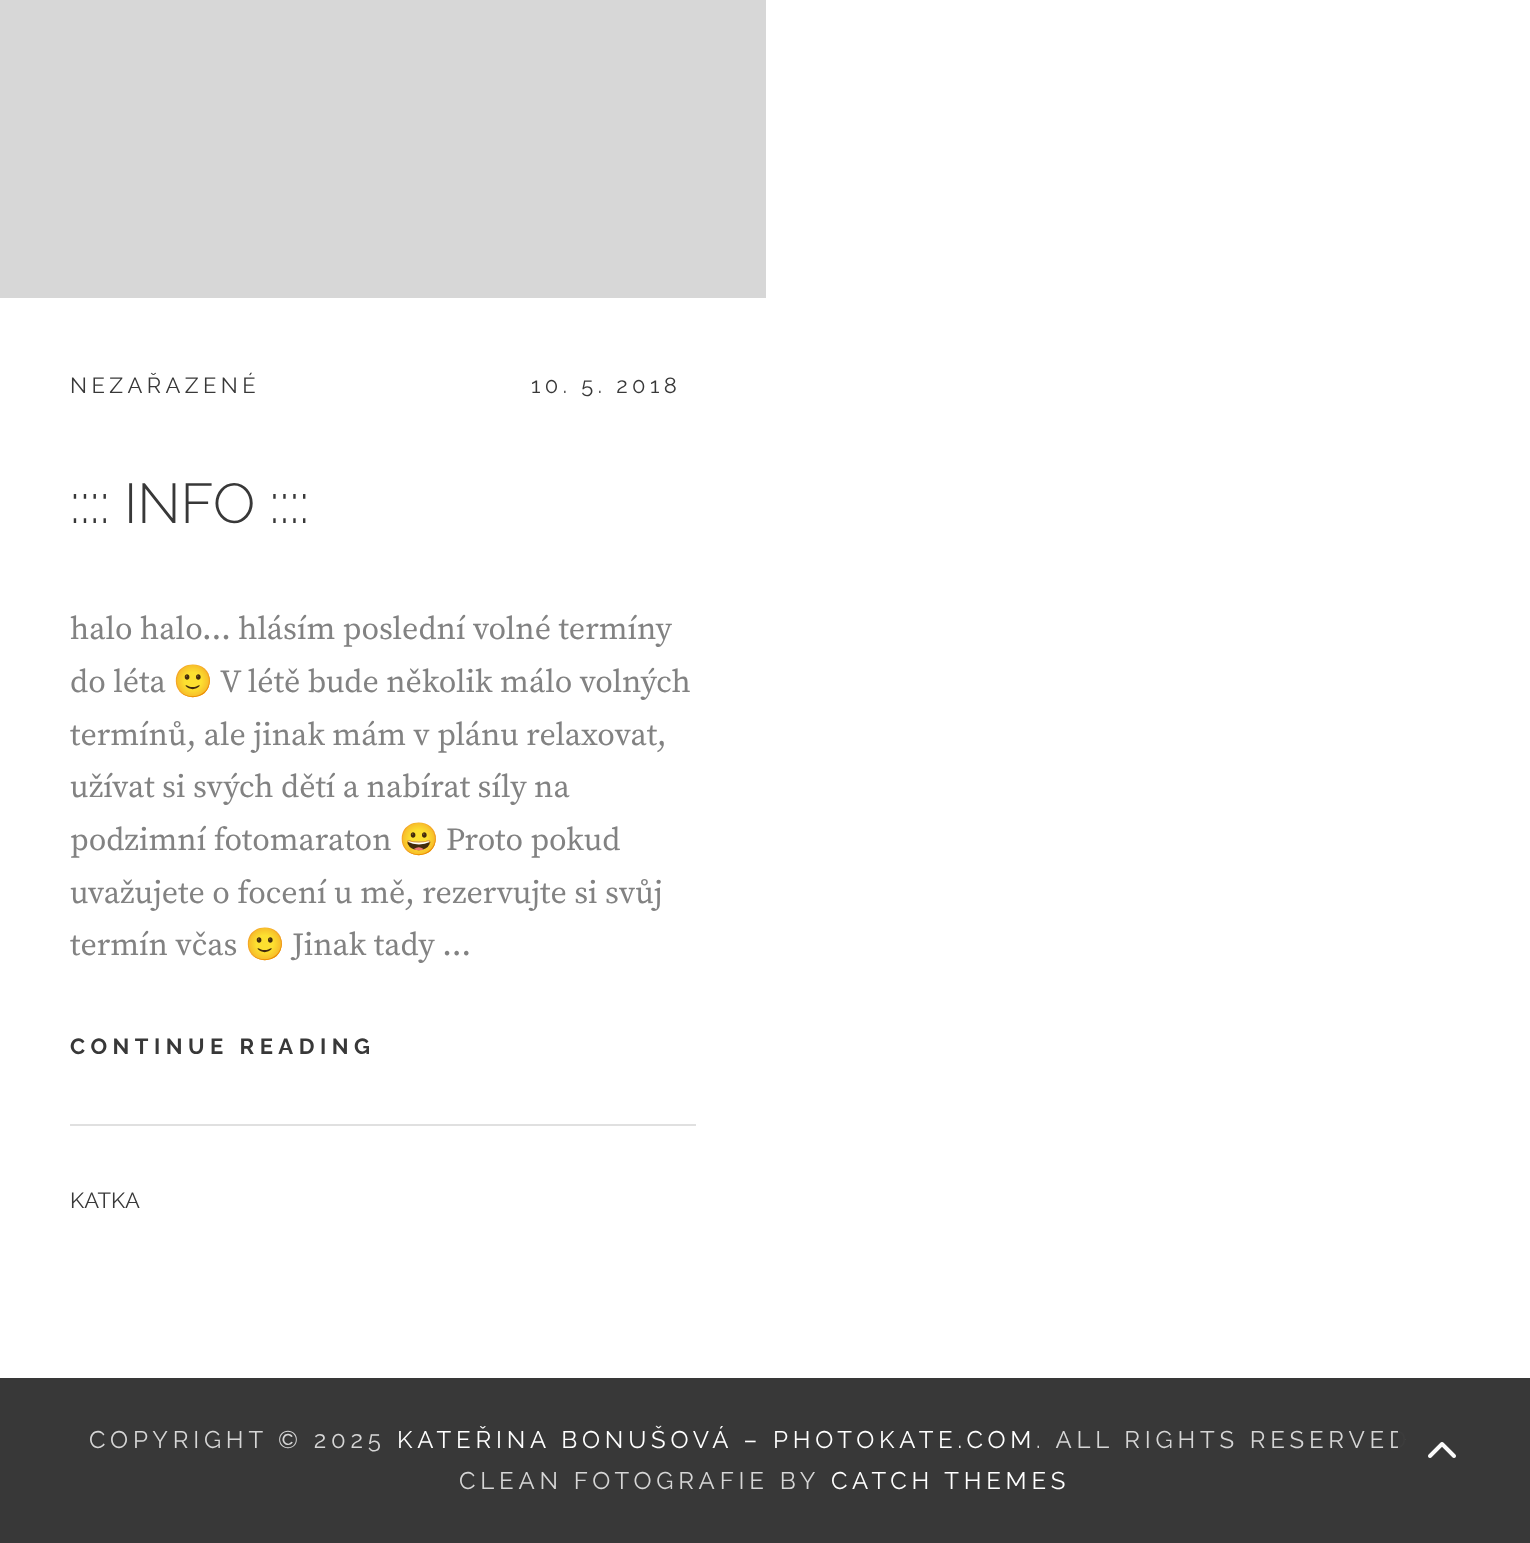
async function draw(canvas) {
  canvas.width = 1530;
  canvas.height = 1543;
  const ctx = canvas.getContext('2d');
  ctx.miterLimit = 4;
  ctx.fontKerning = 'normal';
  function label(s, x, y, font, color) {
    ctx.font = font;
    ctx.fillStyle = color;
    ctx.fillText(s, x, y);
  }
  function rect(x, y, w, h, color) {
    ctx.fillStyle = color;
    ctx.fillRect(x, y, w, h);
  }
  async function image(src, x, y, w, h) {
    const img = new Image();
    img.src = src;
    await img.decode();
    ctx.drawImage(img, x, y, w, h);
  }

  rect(0, 0, 1530, 1543, '#fff');
  rect(0, 0, 766, 298, '#d7d7d7');
  ctx.letterSpacing = '4.4px';
  label('NEZAŘAZENÉ', 70, 393, '22px Raleway', '#383838');
  label('10. 5. 2018', 531, 393, '22px Raleway', '#383838');
  ctx.letterSpacing = '0px';
  label(':::: INFO ::::', 70, 523, '300 56px Raleway', '#383838');
  label('halo halo… hlásím poslední volné termíny', 70, 639, '32px Source Serif Pro', '#828282');
  label('do léta', 70, 692, '32px Source Serif Pro', '#828282');
  label('🙂', 173, 692, '32px Noto Color Emoji', '#828282');
  label('V létě bude několik málo volných', 220, 692, '32px Source Serif Pro', '#828282');
  label('termínů, ale jinak mám v plánu relaxovat,', 70, 745, '32px Source Serif Pro', '#828282');
  label('užívat si svých dětí a nabírat síly na', 70, 797, '32px Source Serif Pro', '#828282');
  label('podzimní fotomaraton', 70, 850, '32px Source Serif Pro', '#828282');
  label('😀', 399, 850, '32px Noto Color Emoji', '#828282');
  label('Proto pokud', 446, 850, '32px Source Serif Pro', '#828282');
  label('uvažujete o focení u mě, rezervujte si svůj', 70, 903, '32px Source Serif Pro', '#828282');
  label('termín včas', 70, 955, '32px Source Serif Pro', '#828282');
  label('🙂', 245, 955, '32px Noto Color Emoji', '#828282');
  label('Jinak tady …', 292, 955, '32px Source Serif Pro', '#828282');
  ctx.letterSpacing = '5.5px';
  label('CONTINUE READING', 70, 1054, 'bold 22px Raleway', '#383838');
  rect(70, 1124, 626, 2, '#e0e0e0');
  ctx.letterSpacing = '0px';
  label('KATKA', 70, 1208, '22px Raleway', '#383838');
  rect(0, 1378, 1530, 165, '#383838');
  ctx.letterSpacing = '4.8px';
  label('COPYRIGHT © 2025', 89, 1448, '24px Raleway', '#d6d6d6');
  label('KATEŘINA BONUŠOVÁ – PHOTOKATE.COM', 397, 1448, '24px Raleway', '#fff');
  label('. ALL RIGHTS RESERVED', 1036, 1448, '24px Raleway', '#d6d6d6');
  label('CLEAN FOTOGRAFIE BY', 459, 1489, '24px Raleway', '#d6d6d6');
  label('CATCH THEMES', 831, 1489, '24px Raleway', '#fff');
  rect(1398, 1431, 7, 17, '#383838fa');
  await image('assets/img1.png', 1428, 1442, 28, 16);
}

draw(document.querySelector('canvas'));
